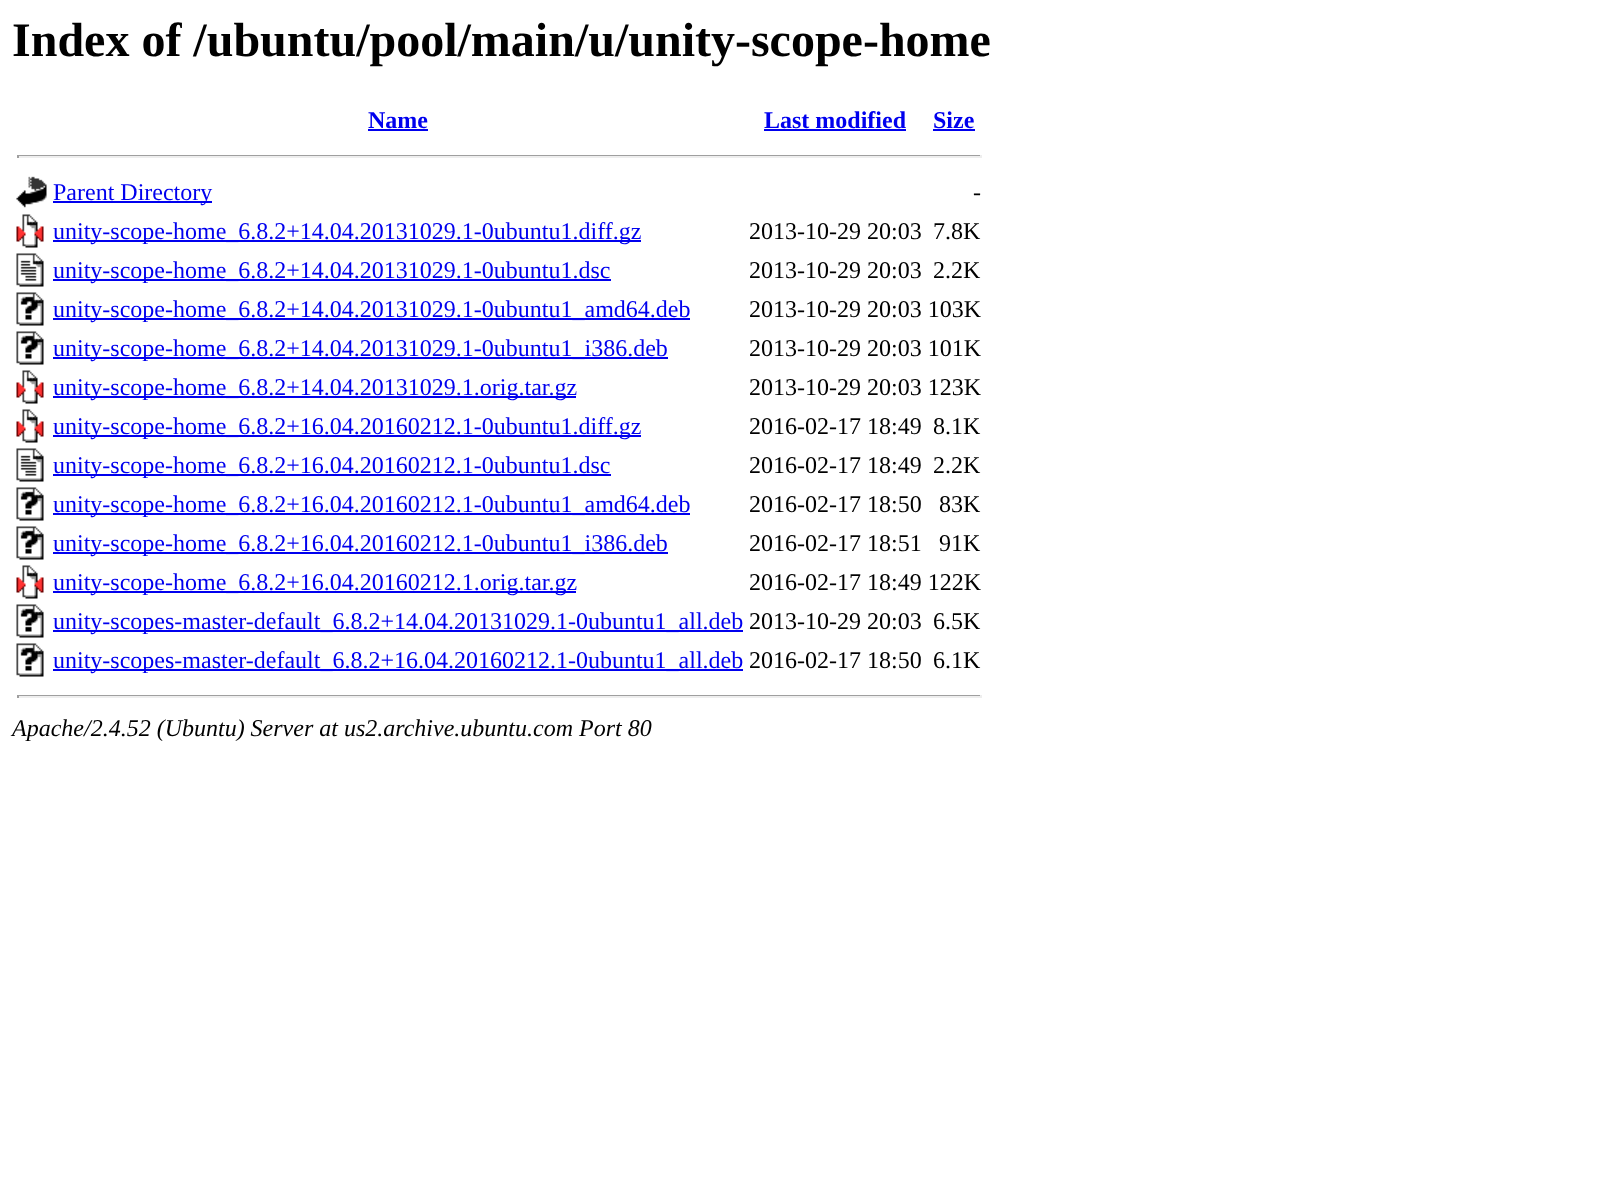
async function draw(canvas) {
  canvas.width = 1622;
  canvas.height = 1182;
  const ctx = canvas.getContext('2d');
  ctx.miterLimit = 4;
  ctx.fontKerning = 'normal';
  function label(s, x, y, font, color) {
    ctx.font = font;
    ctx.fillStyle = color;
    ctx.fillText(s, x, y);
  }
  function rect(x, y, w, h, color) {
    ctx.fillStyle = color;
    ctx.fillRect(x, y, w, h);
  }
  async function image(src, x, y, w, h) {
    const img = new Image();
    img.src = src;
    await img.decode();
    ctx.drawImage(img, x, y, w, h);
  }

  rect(0, 0, 1622, 1182, '#fff');
  label('Index of /ubuntu/pool/main/u/unity-scope-home', 12, 56, 'bold 48px Liberation Serif', '#000');
  label('Name', 368, 128, 'bold 24px Liberation Serif', '#00e');
  rect(368, 129, 60, 2, '#00e');
  label('Last modified', 764, 128, 'bold 24px Liberation Serif', '#00e');
  rect(764, 129, 142, 2, '#00e');
  label('Size', 933, 128, 'bold 24px Liberation Serif', '#00e');
  rect(933, 129, 42, 2, '#00e');
  rect(17, 155, 964, 1, '#9f9f9f');
  rect(980, 155, 2, 3, '#eee');
  rect(17, 156, 964, 2, '#eee');
  rect(17, 155, 2, 3, '#9f9f9f');
  await image('assets/img1.png', 16, 176, 31, 32);
  rect(53, 201, 159, 2, '#00e');
  label('Parent Directory', 53, 200, '24px Liberation Serif', '#00e');
  label('-', 973, 200, '24px Liberation Serif', '#000');
  await image('assets/img2.png', 16, 214, 28, 34);
  rect(53, 240, 588, 2, '#00e');
  label('unity-scope-home_6.8.2+14.04.20131029.1-0ubuntu1.diff.gz', 53, 239, '24px Liberation Serif', '#00e');
  label('2013-10-29 20:03', 749, 239, '24px Liberation Serif', '#000');
  label('7.8K', 933, 239, '24px Liberation Serif', '#000');
  await image('assets/img3.png', 16, 253, 28, 34);
  rect(53, 279, 558, 2, '#00e');
  label('unity-scope-home_6.8.2+14.04.20131029.1-0ubuntu1.dsc', 53, 278, '24px Liberation Serif', '#00e');
  label('2013-10-29 20:03', 749, 278, '24px Liberation Serif', '#000');
  label('2.2K', 933, 278, '24px Liberation Serif', '#000');
  await image('assets/img4.png', 16, 292, 28, 34);
  rect(53, 318, 637, 2, '#00e');
  label('unity-scope-home_6.8.2+14.04.20131029.1-0ubuntu1_amd64.deb', 53, 317, '24px Liberation Serif', '#00e');
  label('2013-10-29 20:03 103K', 749, 317, '24px Liberation Serif', '#000');
  await image('assets/img4.png', 16, 331, 28, 34);
  rect(53, 357, 615, 2, '#00e');
  label('unity-scope-home_6.8.2+14.04.20131029.1-0ubuntu1_i386.deb', 53, 356, '24px Liberation Serif', '#00e');
  label('2013-10-29 20:03 101K', 749, 356, '24px Liberation Serif', '#000');
  await image('assets/img2.png', 16, 370, 28, 34);
  rect(53, 396, 523, 2, '#00e');
  label('unity-scope-home_6.8.2+14.04.20131029.1.orig.tar.gz', 53, 395, '24px Liberation Serif', '#00e');
  label('2013-10-29 20:03 123K', 749, 395, '24px Liberation Serif', '#000');
  await image('assets/img2.png', 16, 409, 28, 34);
  rect(53, 435, 588, 2, '#00e');
  label('unity-scope-home_6.8.2+16.04.20160212.1-0ubuntu1.diff.gz', 53, 434, '24px Liberation Serif', '#00e');
  label('2016-02-17 18:49', 749, 434, '24px Liberation Serif', '#000');
  label('8.1K', 933, 434, '24px Liberation Serif', '#000');
  await image('assets/img3.png', 16, 448, 28, 34);
  rect(53, 474, 558, 2, '#00e');
  label('unity-scope-home_6.8.2+16.04.20160212.1-0ubuntu1.dsc', 53, 473, '24px Liberation Serif', '#00e');
  label('2016-02-17 18:49', 749, 473, '24px Liberation Serif', '#000');
  label('2.2K', 933, 473, '24px Liberation Serif', '#000');
  await image('assets/img4.png', 16, 487, 28, 34);
  rect(53, 513, 637, 2, '#00e');
  label('unity-scope-home_6.8.2+16.04.20160212.1-0ubuntu1_amd64.deb', 53, 512, '24px Liberation Serif', '#00e');
  label('2016-02-17 18:50', 749, 512, '24px Liberation Serif', '#000');
  label('83K', 939, 512, '24px Liberation Serif', '#000');
  await image('assets/img4.png', 16, 526, 28, 34);
  rect(53, 552, 615, 2, '#00e');
  label('unity-scope-home_6.8.2+16.04.20160212.1-0ubuntu1_i386.deb', 53, 551, '24px Liberation Serif', '#00e');
  label('2016-02-17 18:51', 749, 551, '24px Liberation Serif', '#000');
  label('91K', 939, 551, '24px Liberation Serif', '#000');
  await image('assets/img2.png', 16, 565, 28, 34);
  rect(53, 591, 523, 2, '#00e');
  label('unity-scope-home_6.8.2+16.04.20160212.1.orig.tar.gz', 53, 590, '24px Liberation Serif', '#00e');
  label('2016-02-17 18:49 122K', 749, 590, '24px Liberation Serif', '#000');
  await image('assets/img4.png', 16, 604, 28, 34);
  rect(53, 630, 690, 2, '#00e');
  label('unity-scopes-master-default_6.8.2+14.04.20131029.1-0ubuntu1_all.deb', 53, 629, '24px Liberation Serif', '#00e');
  label('2013-10-29 20:03', 749, 629, '24px Liberation Serif', '#000');
  label('6.5K', 933, 629, '24px Liberation Serif', '#000');
  await image('assets/img4.png', 16, 643, 28, 34);
  rect(53, 669, 690, 2, '#00e');
  label('unity-scopes-master-default_6.8.2+16.04.20160212.1-0ubuntu1_all.deb', 53, 668, '24px Liberation Serif', '#00e');
  label('2016-02-17 18:50', 749, 668, '24px Liberation Serif', '#000');
  label('6.1K', 933, 668, '24px Liberation Serif', '#000');
  rect(17, 695, 964, 1, '#9f9f9f');
  rect(980, 695, 2, 3, '#eee');
  rect(17, 696, 964, 2, '#eee');
  rect(17, 695, 2, 3, '#9f9f9f');
  label('Apache/2.4.52 (Ubuntu) Server at us2.archive.ubuntu.com Port 80', 12, 736, 'italic 24px Liberation Serif', '#000');
}

draw(document.querySelector('canvas'));
